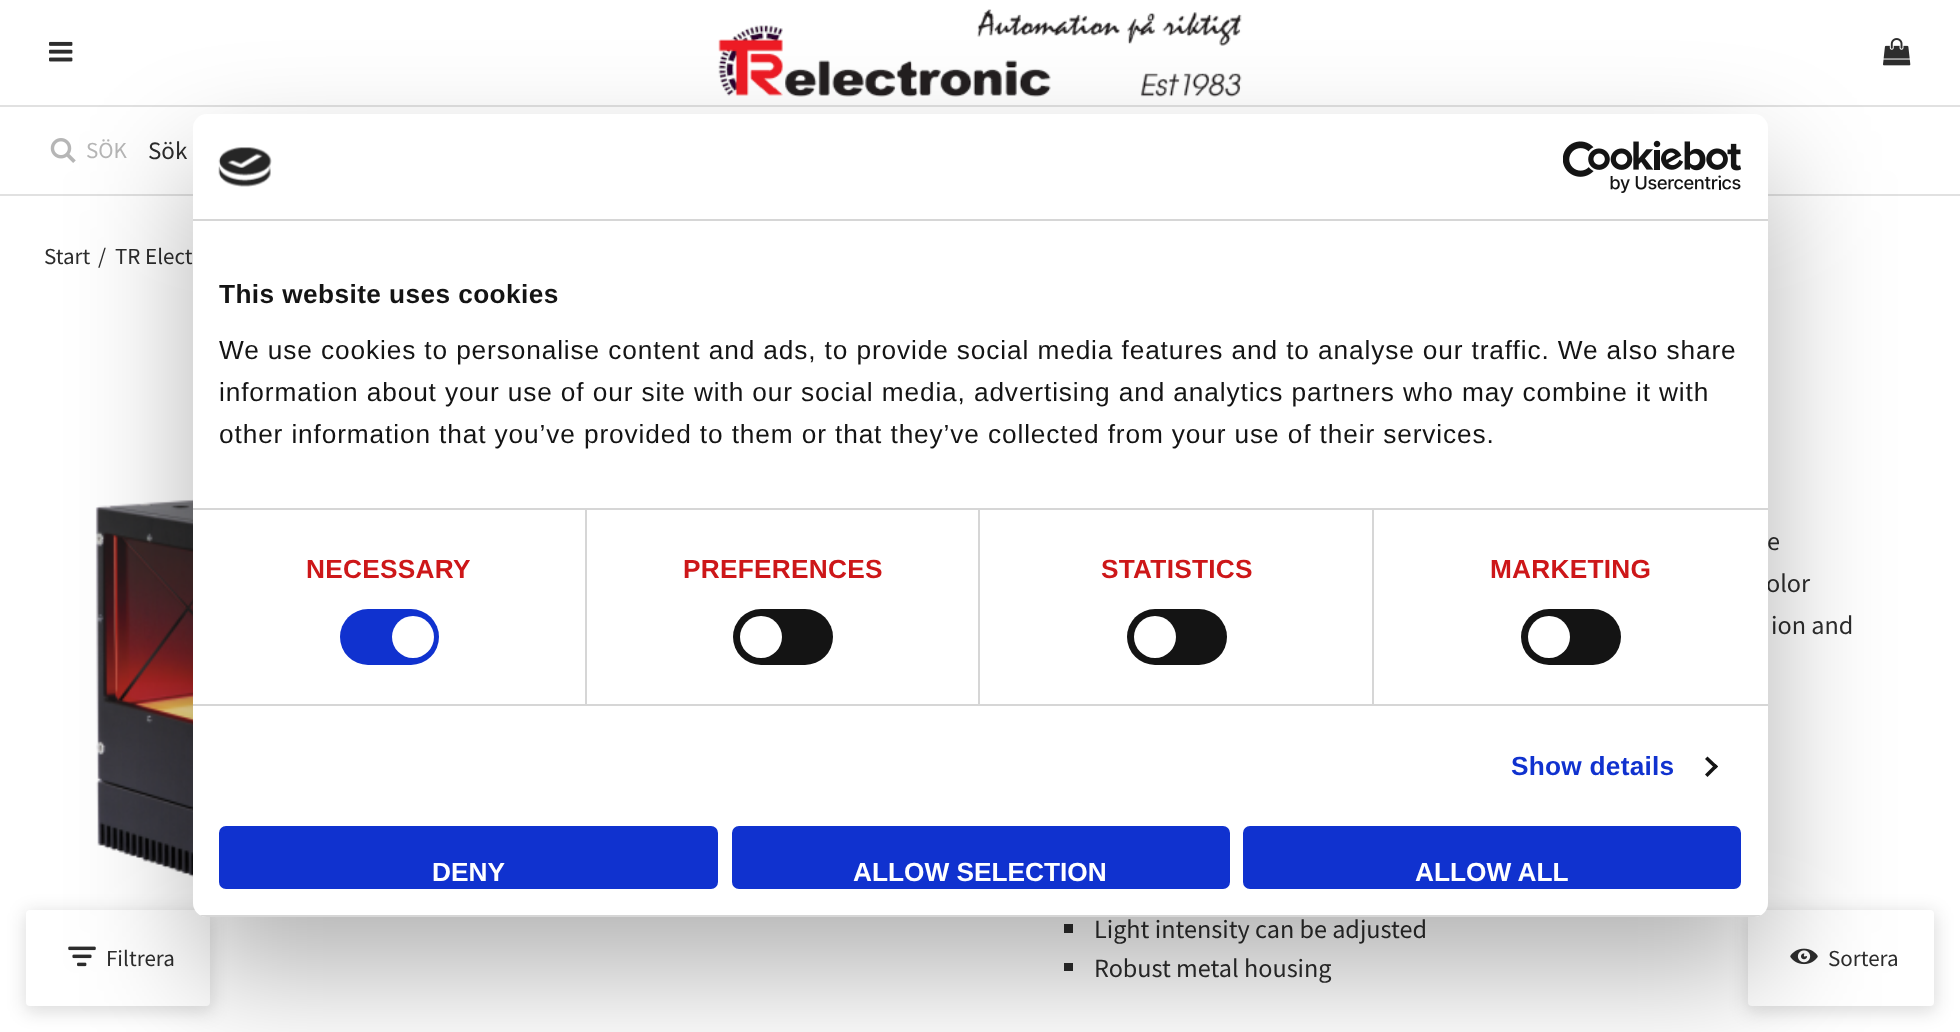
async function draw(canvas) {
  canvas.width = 1960;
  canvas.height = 1032;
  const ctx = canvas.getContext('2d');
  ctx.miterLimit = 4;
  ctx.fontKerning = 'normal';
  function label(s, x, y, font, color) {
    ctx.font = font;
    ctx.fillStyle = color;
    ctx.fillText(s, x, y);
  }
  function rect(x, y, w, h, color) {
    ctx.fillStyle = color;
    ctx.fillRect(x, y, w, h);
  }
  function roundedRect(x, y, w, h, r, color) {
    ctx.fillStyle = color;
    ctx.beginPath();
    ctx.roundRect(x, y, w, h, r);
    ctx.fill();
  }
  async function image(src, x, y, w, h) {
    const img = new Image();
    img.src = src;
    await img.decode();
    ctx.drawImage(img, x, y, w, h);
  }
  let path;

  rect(0, 0, 1960, 1032, '#fff');
  rect(0, 105, 1960, 2, '#e1e1e1');
  await image('assets/img1.png', 49, 41, 24, 21);
  await image('assets/img2.png', 718, 9, 524, 88);
  await image('assets/img3.png', 1883, 38, 28, 28);
  rect(0, 194, 1960, 2, '#e1e1e1');
  await image('assets/img4.png', 50, 138, 26, 25);
  label('SÖK', 86, 158, '23px Source Sans Pro', '#b6b6b6');
  label('Sök', 148, 159, '25px Source Sans Pro', '#2d2d2d');
  label('Start', 44, 264, '23px Source Sans Pro', '#2d2d2d');
  label('/', 98, 264, '23px Source Sans Pro', '#2d2d2d');
  label('TR Elect', 115, 264, '23px Source Sans Pro', '#2d2d2d');
  await image('assets/img5.png', 95, 499, 98, 378);
  label('e', 1767, 550, '26.2px Source Sans Pro', '#2d2d2d');
  label('olor', 1766, 592, '26.2px Source Sans Pro', '#2d2d2d');
  label('ion and', 1771, 634, '26.2px Source Sans Pro', '#2d2d2d');
  rect(1064, 924, 9, 9, '#2d2d2d');
  label('Light intensity can be adjusted', 1094, 938, '26.2px Source Sans Pro', '#2d2d2d');
  rect(1064, 963, 9, 8, '#2d2d2d');
  label('Robust metal housing', 1094, 977, '26.2px Source Sans Pro', '#2d2d2d');
  ctx.fillStyle = '#11111126';
  ctx.filter = 'blur(9px)';
  ctx.beginPath();
  ctx.roundRect(25, 912, 187, 100, 5);
  ctx.fill();
  ctx.filter = 'none';
  roundedRect(26, 910, 184, 96, 4, '#fff');
  await image('assets/img6.png', 68, 946, 28, 21);
  label('Filtrera', 106, 966, '23px Source Sans Pro', '#2d2d2d');
  ctx.fillStyle = '#11111126';
  ctx.filter = 'blur(9px)';
  ctx.beginPath();
  ctx.roundRect(1747, 912, 189, 100, 5);
  ctx.fill();
  ctx.filter = 'none';
  roundedRect(1748, 910, 186, 96, 4, '#fff');
  await image('assets/img7.png', 1790, 948, 28, 17);
  label('Sortera', 1828, 966, '23px Source Sans Pro', '#2d2d2d');
  ctx.fillStyle = '#0000004d';
  ctx.filter = 'blur(59.5px)';
  ctx.beginPath();
  ctx.roundRect(193, 170, 1575, 803, 14);
  ctx.fill();
  ctx.filter = 'none';
  roundedRect(193, 114, 1575, 803, 14, '#fff');
  rect(193, 219, 1575, 2, '#d6d6d6');
  await image('assets/img8.png', 218, 147, 54, 40);
  await image('assets/img9.png', 1563, 140, 178, 53);
  rect(585, 509, 2, 195, '#d6d6d6');
  rect(978, 509, 2, 195, '#d6d6d6');
  rect(1372, 509, 2, 195, '#d6d6d6');
  rect(193, 508, 1575, 2, '#d6d6d6');
  ctx.letterSpacing = '0.4px';
  label('This website uses cookies', 219, 303, 'bold 26.25px Liberation Sans', '#141414');
  ctx.letterSpacing = '0.88px';
  label('We use cookies to personalise content and ads, to provide social media features and to analyse our traffic. We also share', 219, 359, '26.25px Liberation Sans', '#141414');
  label('information about your use of our site with our social media, advertising and analytics partners who may combine it with', 219, 401, '26.25px Liberation Sans', '#141414');
  label('other information that you’ve provided to them or that they’ve collected from your use of their services.', 219, 443, '26.25px Liberation Sans', '#141414');
  rect(193, 704, 1575, 2, '#d6d6d6');
  ctx.letterSpacing = '0.25px';
  label('NECESSARY', 306, 578, 'bold 26.25px Liberation Sans', '#cd1719');
  roundedRect(340, 609, 99, 56, 28, '#1032cf');
  ctx.fillStyle = '#fff';
  ctx.beginPath();
  ctx.arc(413, 637, 21, 0, 2 * Math.PI);
  ctx.fill();
  label('PREFERENCES', 683, 578, 'bold 26.25px Liberation Sans', '#cd1719');
  roundedRect(733, 609, 100, 56, 28, '#141414');
  ctx.fillStyle = '#fff';
  ctx.beginPath();
  ctx.arc(761, 637, 21, 0, 2 * Math.PI);
  ctx.fill();
  label('STATISTICS', 1101, 578, 'bold 26.25px Liberation Sans', '#cd1719');
  roundedRect(1127, 609, 100, 56, 28, '#141414');
  ctx.fillStyle = '#fff';
  ctx.beginPath();
  ctx.arc(1155, 637, 21, 0, 2 * Math.PI);
  ctx.fill();
  label('MARKETING', 1490, 578, 'bold 26.25px Liberation Sans', '#cd1719');
  roundedRect(1521, 609, 100, 56, 28, '#141414');
  ctx.fillStyle = '#fff';
  ctx.beginPath();
  ctx.arc(1549, 637, 21, 0, 2 * Math.PI);
  ctx.fill();
  label('Show details', 1511, 775, 'bold 26.25px Liberation Sans', '#1032cf');
  ctx.fillStyle = '#141414';
  path = new Path2D('M1707.5 756.5L1718 766.5L1715.5 769L1705 759Z');
  ctx.fill(path);
  path = new Path2D('M1715.5 764L1718 766.5L1707.5 777L1705 774.5Z');
  ctx.fill(path);
  ctx.save();
  ctx.beginPath();
  ctx.roundRect(193, 114, 1575, 803, 14);
  ctx.clip();
  rect(193, 915, 1575, 2, '#d6d6d6');
  ctx.restore();
  ctx.fillStyle = '#1032cf';
  ctx.beginPath();
  ctx.roundRect(221, 828, 495, 59, 5);
  ctx.fill();
  ctx.strokeStyle = '#1032cf';
  ctx.lineWidth = 4;
  ctx.stroke();
  ctx.letterSpacing = '0px';
  label('DENY', 432, 881, 'bold 26.25px Liberation Sans', '#fff');
  ctx.fillStyle = '#1032cf';
  ctx.beginPath();
  ctx.roundRect(734, 828, 494, 59, 5);
  ctx.fill();
  ctx.stroke();
  label('ALLOW SELECTION', 853, 881, 'bold 26.25px Liberation Sans', '#fff');
  ctx.fillStyle = '#1032cf';
  ctx.beginPath();
  ctx.roundRect(1245, 828, 494, 59, 5);
  ctx.fill();
  ctx.stroke();
  label('ALLOW ALL', 1415, 881, 'bold 26.25px Liberation Sans', '#fff');
}

draw(document.querySelector('canvas'));
